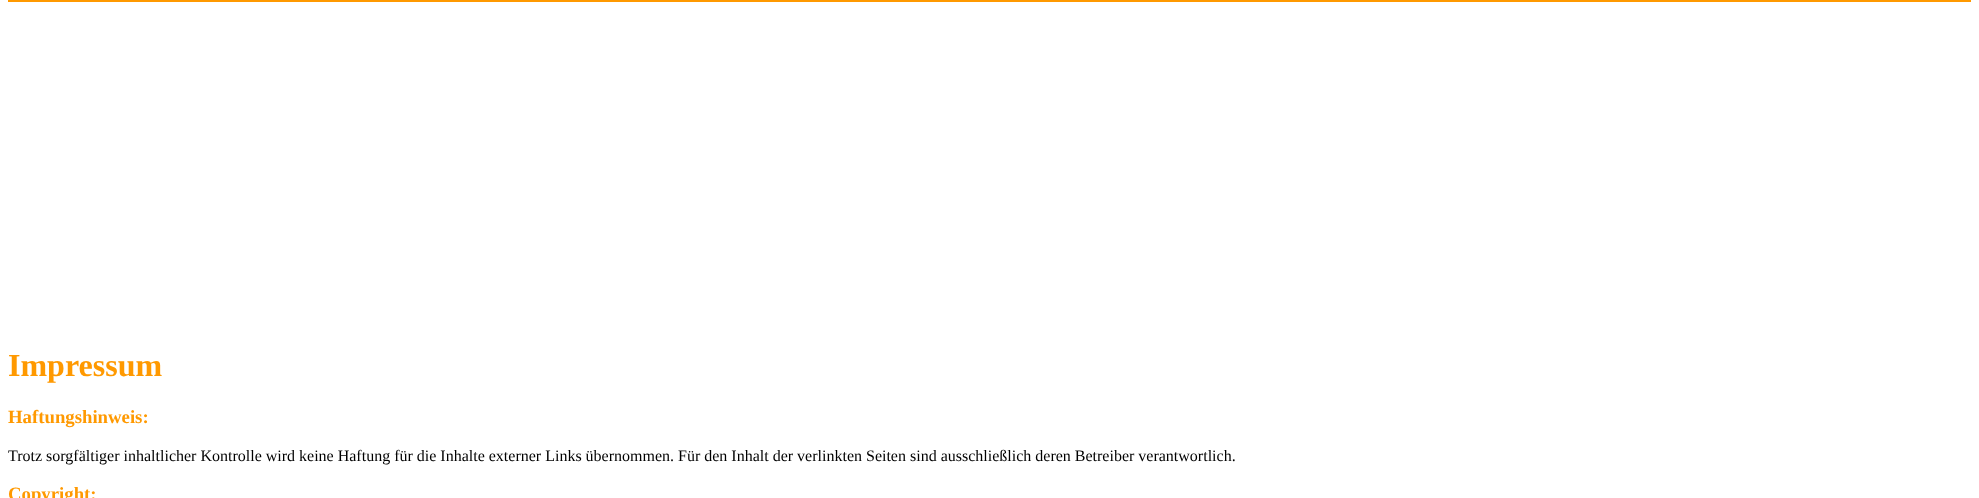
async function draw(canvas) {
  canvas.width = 1979;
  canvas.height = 498;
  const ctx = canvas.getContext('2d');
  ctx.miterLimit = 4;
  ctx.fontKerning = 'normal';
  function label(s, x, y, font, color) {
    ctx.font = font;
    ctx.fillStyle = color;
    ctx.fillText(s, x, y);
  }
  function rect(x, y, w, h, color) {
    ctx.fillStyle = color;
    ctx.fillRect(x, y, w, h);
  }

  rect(0, 0, 1979, 498, '#fff');
  rect(8, 0, 1963, 2, '#f90');
  label('Impressum', 8, 376, 'bold 32px Liberation Serif', '#f90');
  label('Haftungshinweis:', 8, 423, 'bold 18.75px Liberation Serif', '#f90');
  label('Trotz sorgfältiger inhaltlicher Kontrolle wird keine Haftung für die Inhalte externer Links übernommen. Für den Inhalt der verlinkten Seiten sind ausschließlich deren Betreiber verantwortlich.', 8, 461, '16px Liberation Serif', '#000');
  label('Copyright:', 8, 500, 'bold 18.75px Liberation Serif', '#f90');
}

draw(document.querySelector('canvas'));
